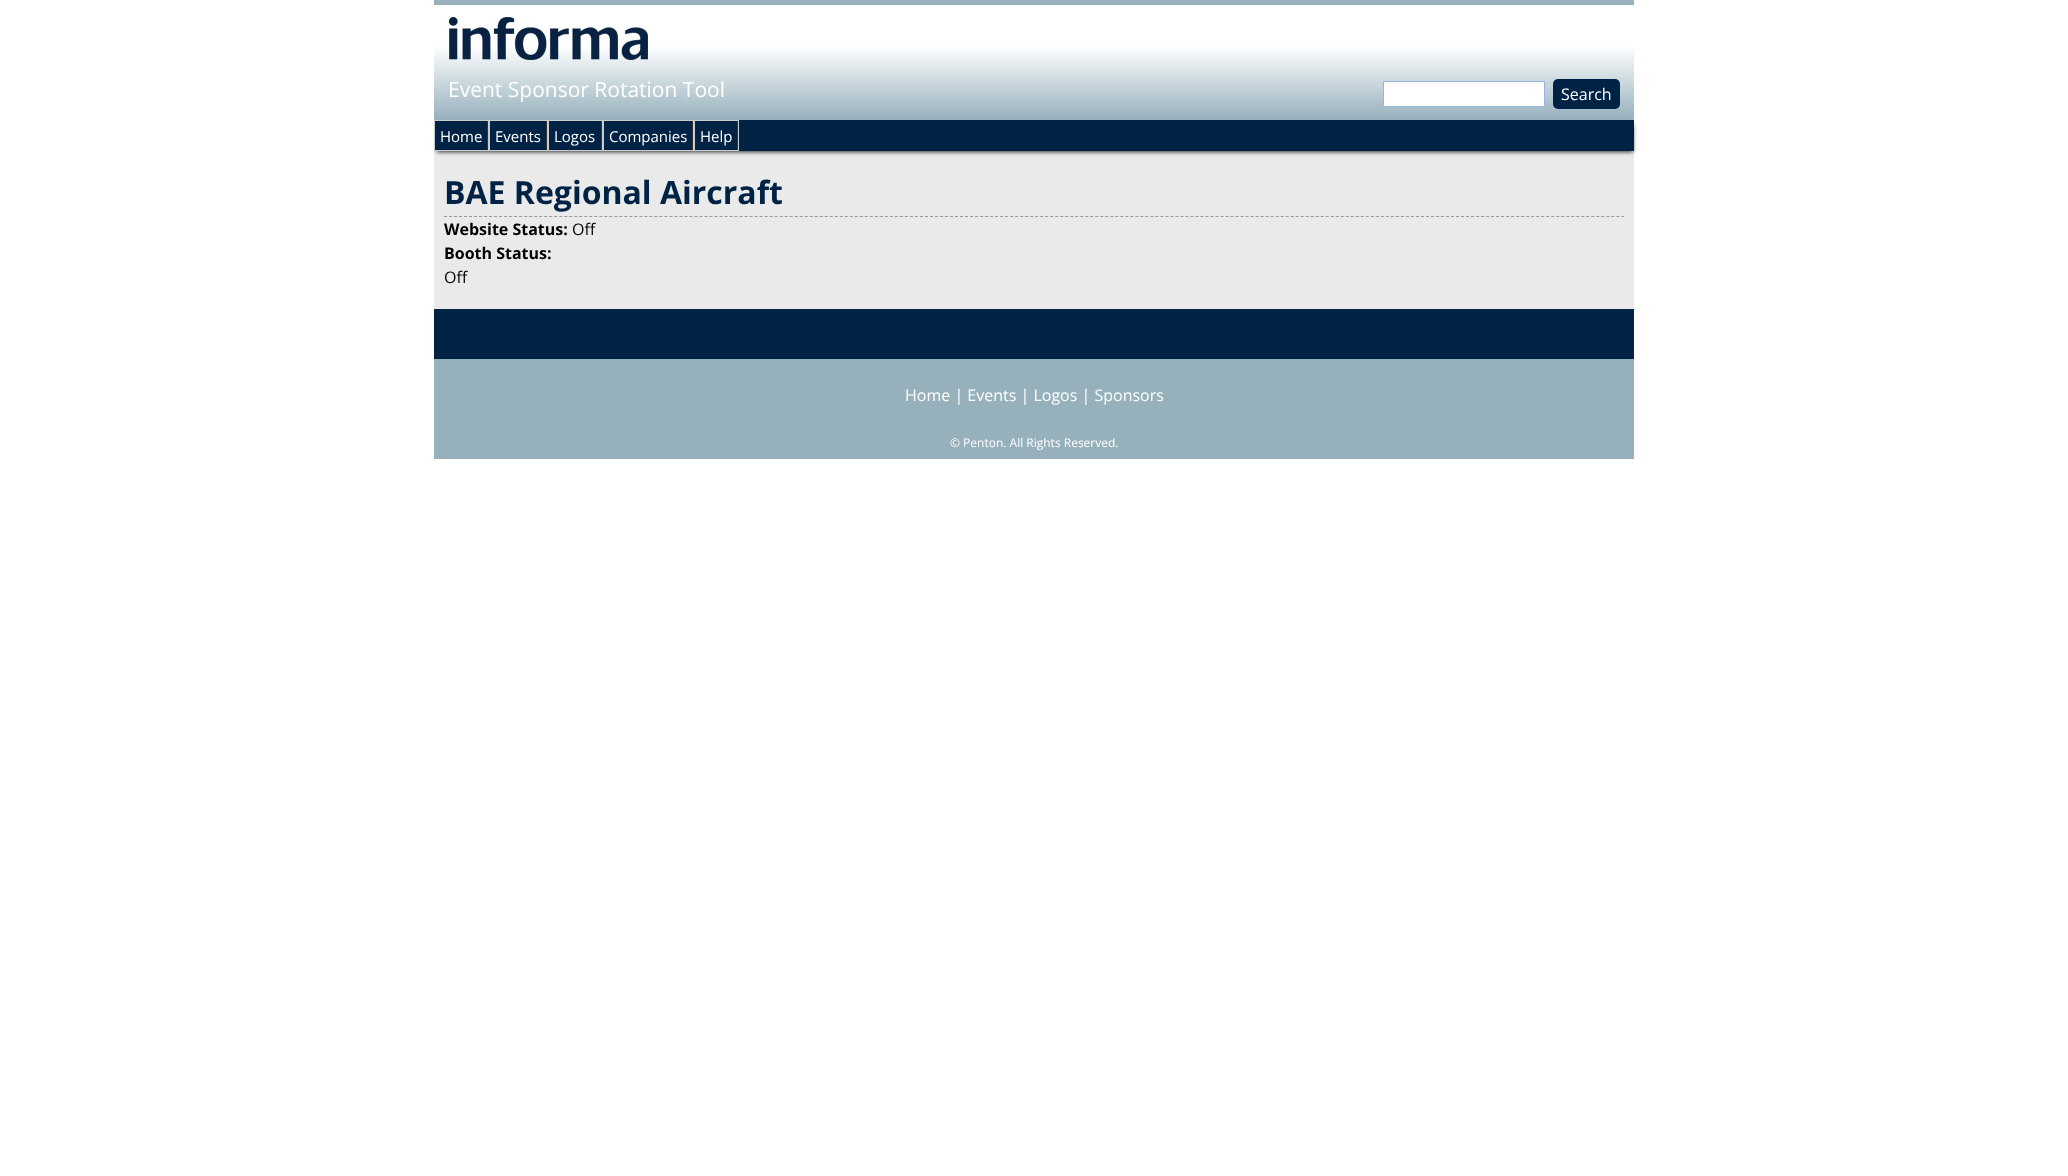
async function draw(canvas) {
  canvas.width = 2068;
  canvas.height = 1176;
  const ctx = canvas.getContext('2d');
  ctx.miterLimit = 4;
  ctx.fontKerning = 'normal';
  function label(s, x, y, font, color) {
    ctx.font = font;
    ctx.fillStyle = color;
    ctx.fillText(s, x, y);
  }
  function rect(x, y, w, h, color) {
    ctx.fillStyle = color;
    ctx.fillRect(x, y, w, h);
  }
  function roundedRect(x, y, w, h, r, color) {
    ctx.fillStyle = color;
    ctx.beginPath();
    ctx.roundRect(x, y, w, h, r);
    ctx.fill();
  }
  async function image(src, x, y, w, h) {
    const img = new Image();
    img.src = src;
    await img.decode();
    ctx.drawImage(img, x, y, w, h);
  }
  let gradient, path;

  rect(0, 0, 2068, 1176, '#fff');
  gradient = ctx.createLinearGradient(1034, 5, 1034, 120);
  gradient.addColorStop(0.35, '#fff');
  gradient.addColorStop(1, '#96b0bc');
  ctx.fillStyle = gradient;
  ctx.fillRect(434, 47, 1200, 73);
  rect(434, 0, 1200, 5, '#96b0bc');
  await image('assets/img1.png', 449, 17, 199, 43);
  label('Event Sponsor Rotation Tool', 448, 97, '21px Open Sans', '#fff');
  rect(434, 151, 1200, 158, '#eaeaea');
  ctx.fillStyle = '#fff';
  ctx.beginPath();
  ctx.rect(1383.5, 81.5, 161, 25);
  ctx.fill();
  ctx.strokeStyle = '#97b5e1';
  ctx.stroke();
  roundedRect(1553, 79, 67, 30, 5, '#024');
  label('Search', 1561, 100, '16px Open Sans', '#fff');
  ctx.fillStyle = '#333';
  ctx.filter = 'blur(2px)';
  ctx.beginPath();
  ctx.rect(437, 125, 1196, 27);
  ctx.fill();
  ctx.filter = 'none';
  rect(435, 120, 1199, 31, '#024');
  ctx.strokeStyle = '#ccc';
  ctx.strokeRect(434.5, 120.5, 54, 30);
  rect(487, 121, 1, 29, '#333');
  label('Home', 440, 142, '15px Open Sans', '#fff');
  ctx.strokeRect(489.5, 120.5, 58, 30);
  rect(546, 121, 1, 29, '#333');
  label('Events', 495, 142, '15px Open Sans', '#fff');
  ctx.strokeRect(548.5, 120.5, 54, 30);
  rect(601, 121, 1, 29, '#333');
  label('Logos', 554, 142, '15px Open Sans', '#fff');
  ctx.strokeRect(603.5, 120.5, 90, 30);
  rect(692, 121, 1, 29, '#333');
  label('Companies', 609, 142, '15px Open Sans', '#fff');
  ctx.strokeRect(694.5, 120.5, 44, 30);
  rect(737, 121, 1, 29, '#333');
  label('Help', 700, 142, '15px Open Sans', '#fff');
  path = new Path2D('M444 216.5H1624');
  ctx.strokeStyle = '#999';
  ctx.setLineDash([3, 2.01]);
  ctx.stroke(path);
  label('BAE Regional Aircraft', 444, 204, 'bold 32px Open Sans', '#024');
  label('Website Status:', 444, 235, 'bold 16px Open Sans', '#000');
  label('Off', 572, 235, '16px Open Sans', '#000');
  label('Booth Status:', 444, 259, 'bold 16px Open Sans', '#000');
  label('Off', 444, 283, '16px Open Sans', '#000');
  rect(434, 359, 1200, 100, '#96b0bc');
  rect(434, 309, 1200, 50, '#024');
  label('Home | Events | Logos | Sponsors', 905, 401, '16px Open Sans', '#fff');
  label('© Penton. All Rights Reserved.', 950, 447, '12px Open Sans', '#fff');
}

draw(document.querySelector('canvas'));
